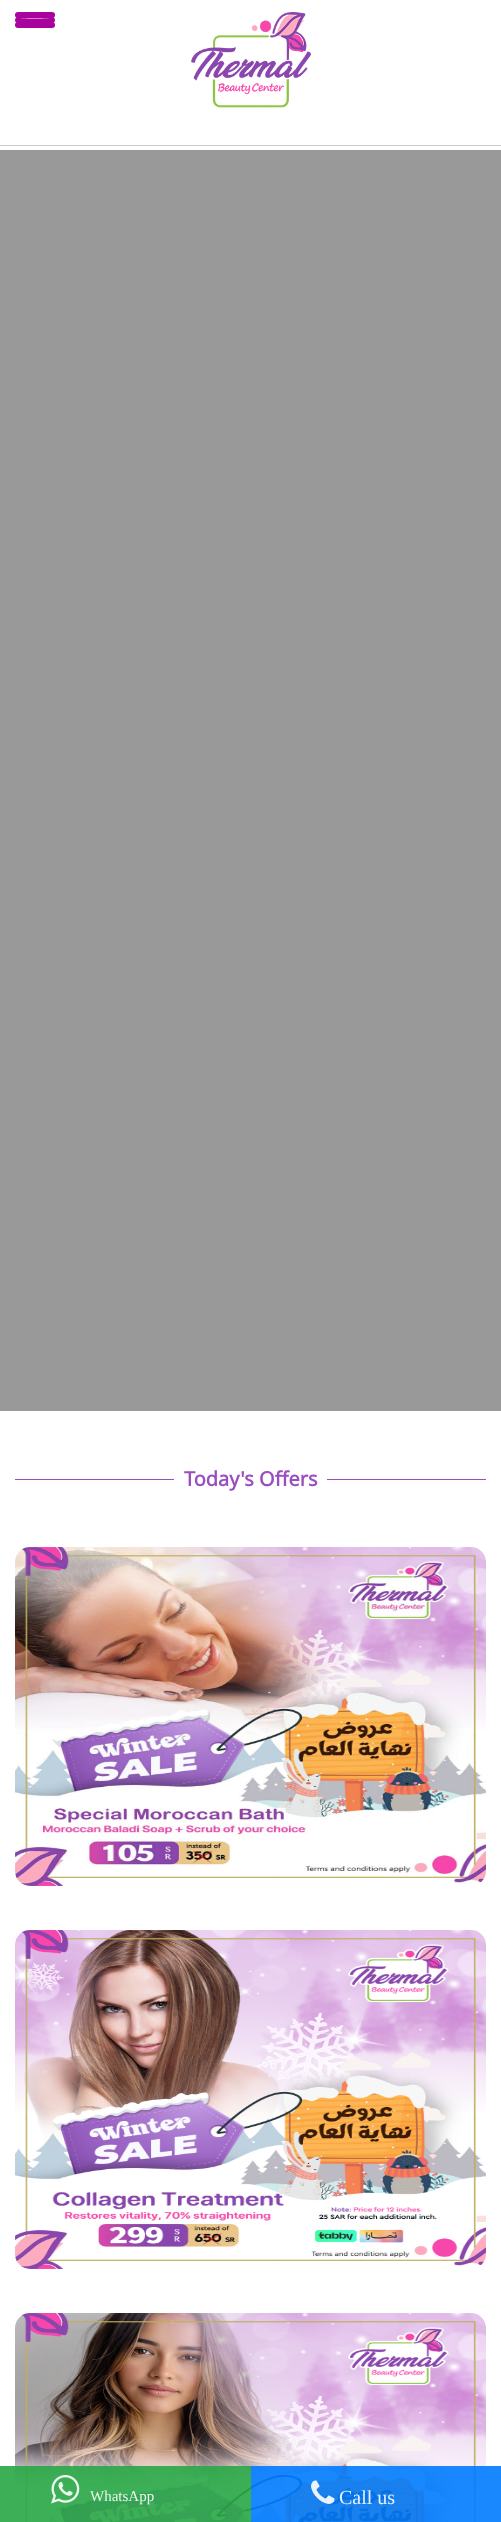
async function draw(canvas) {
  canvas.width = 501;
  canvas.height = 2522;
  const ctx = canvas.getContext('2d');
  ctx.miterLimit = 4;
  ctx.fontKerning = 'normal';
  function label(s, x, y, font, color) {
    ctx.font = font;
    ctx.fillStyle = color;
    ctx.fillText(s, x, y);
  }
  function rect(x, y, w, h, color) {
    ctx.fillStyle = color;
    ctx.fillRect(x, y, w, h);
  }
  function roundedRect(x, y, w, h, r, color) {
    ctx.fillStyle = color;
    ctx.beginPath();
    ctx.roundRect(x, y, w, h, r);
    ctx.fill();
  }
  async function image(src, x, y, w, h) {
    const img = new Image();
    img.src = src;
    await img.decode();
    ctx.drawImage(img, x, y, w, h);
  }
  let path;

  rect(0, 0, 501, 2522, '#fff');
  rect(0, 145, 501, 1, '#ccc');
  roundedRect(15, 22, 40, 6, 3, '#a8039c');
  path = new Path2D('M16 17C16 18 15 19 15 20C15 22 16 23 18 23H52C54 23 55 22 55 20C55 19 54 18 54 17C52 19 18 19 16 17Z');
  ctx.fill(path);
  roundedRect(15, 12, 40, 6, 3, '#a8039c');
  await image('assets/img1.png', 191, 12, 120, 96);
  rect(0, 150, 501, 1261, '#999');
  rect(15, 1479, 159, 1, '#9a4fc1');
  label('Today\'s Offers', 184, 1486, 'bold 20px Noto Sans', '#9a4fc1');
  rect(327, 1479, 159, 1, '#9a4fc1');
  await image('assets/img2.png', 15, 1547, 471, 339);
  await image('assets/img3.png', 15, 1930, 471, 339);
  await image('assets/img4.png', 15, 2313, 471, 209);
  rect(0, 2466, 251, 56, '#28a745e6');
  await image('assets/img5.png', 51, 2475, 29, 29);
  label('WhatsApp', 90, 2501, '15px Liberation Serif', '#ebf6ee');
  rect(251, 2466, 250, 56, '#007bffe6');
  await image('assets/img6.png', 311, 2480, 24, 24);
  label('Call us', 339, 2504, '20px Liberation Serif', '#e7f2fd');
}

draw(document.querySelector('canvas'));
